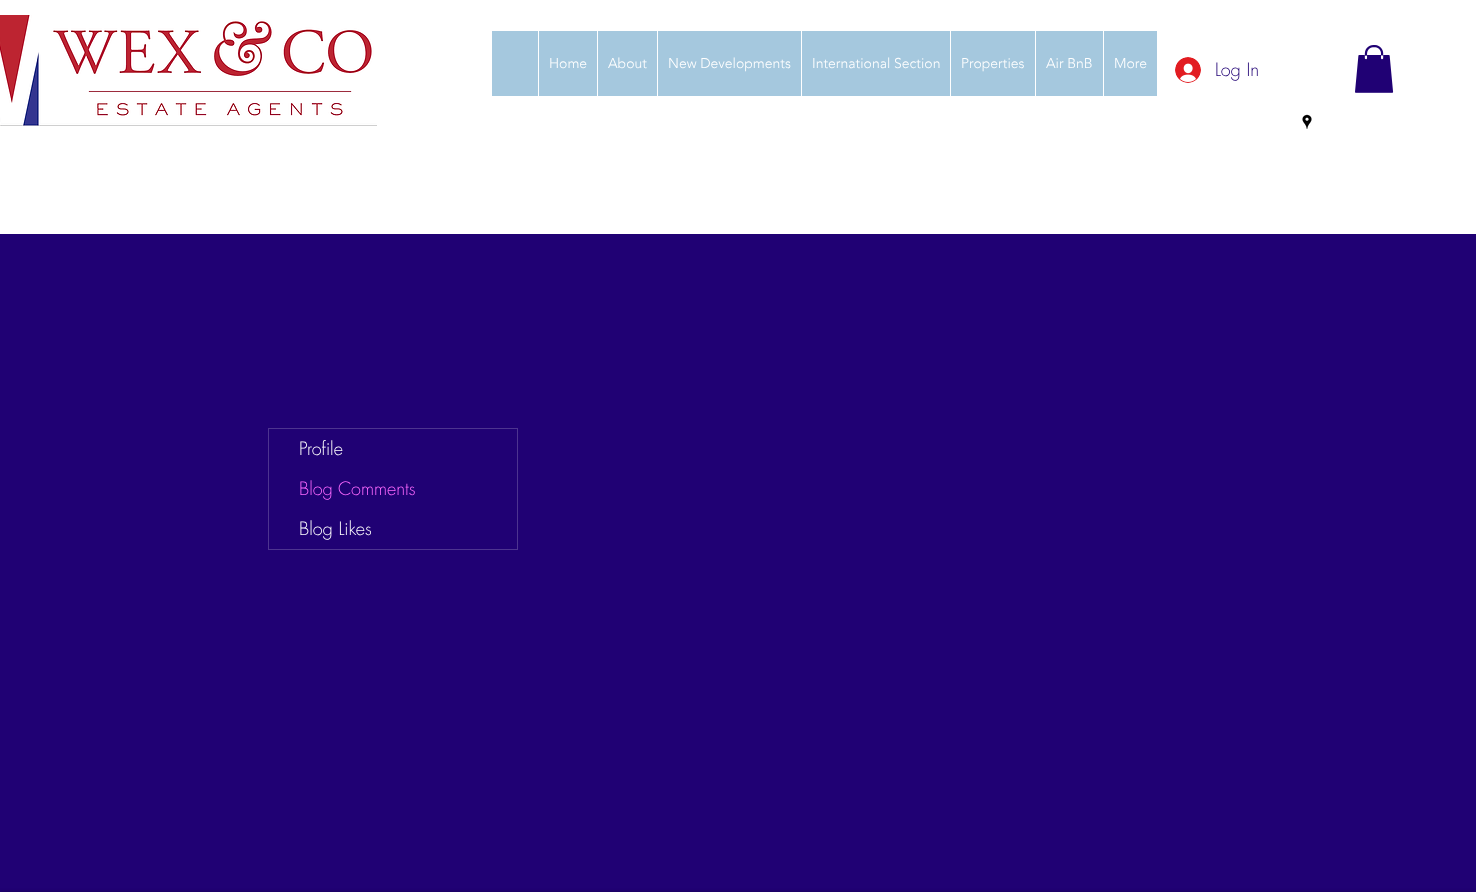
async function draw(canvas) {
  canvas.width = 1476;
  canvas.height = 892;
  const ctx = canvas.getContext('2d');
  ctx.miterLimit = 4;
  ctx.fontKerning = 'normal';
  function label(s, x, y, font, color) {
    ctx.font = font;
    ctx.fillStyle = color;
    ctx.fillText(s, x, y);
  }
  function rect(x, y, w, h, color) {
    ctx.fillStyle = color;
    ctx.fillRect(x, y, w, h);
  }
  async function image(src, x, y, w, h) {
    const img = new Image();
    img.src = src;
    await img.decode();
    ctx.drawImage(img, x, y, w, h);
  }

  rect(0, 0, 1476, 892, '#200174');
  rect(0, 0, 1476, 234, '#fff');
  await image('assets/img1.png', 0, 15, 377, 111);
  rect(492, 31, 665, 65, '#a5c8de');
  rect(538, 31, 1, 65, '#fff');
  label('Home', 549, 68, '300 14px "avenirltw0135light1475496"', '#fff');
  rect(597, 31, 1, 65, '#fff');
  label('About', 608, 68, '300 14px "avenirltw0135light1475496"', '#fff');
  rect(657, 31, 1, 65, '#fff');
  label('New Developments', 668, 68, '300 14px "avenirltw0135light1475496"', '#fff');
  rect(801, 31, 1, 65, '#fff');
  label('International Section', 812, 68, '300 14px "avenirltw0135light1475496"', '#fff');
  rect(950, 31, 1, 65, '#fff');
  label('Properties', 961, 68, '300 14px "avenirltw0135light1475496"', '#fff');
  rect(1035, 31, 1, 65, '#fff');
  label('Air BnB', 1046, 68, '300 14px "avenirltw0135light1475496"', '#fff');
  rect(1103, 31, 1, 65, '#fff');
  label('More', 1114, 68, '300 14px "avenirltw0135light1475496"', '#fff');
  await image('assets/img2.png', 1175, 57, 26, 26);
  label('Log In', 1215, 76, '300 18px futura', '#200174');
  await image('assets/img3.png', 1355, 45, 39, 48);
  await image('assets/img4.png', 1302, 114, 10, 15);
  ctx.strokeStyle = '#4d3490';
  ctx.strokeRect(268.5, 428.5, 249, 121);
  label('Profile', 299, 455, '300 18px futura', '#fff');
  label('Blog Comments', 299, 495, '300 18px futura', '#fb68ff');
  label('Blog Likes', 299, 535, '300 18px futura', '#fff');
  ctx.fillStyle = '#000000b3';
  ctx.filter = 'blur(2.5px)';
  ctx.beginPath();
  ctx.rect(0, 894, 1476, 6);
  ctx.fill();
  ctx.filter = 'none';
}

draw(document.querySelector('canvas'));
